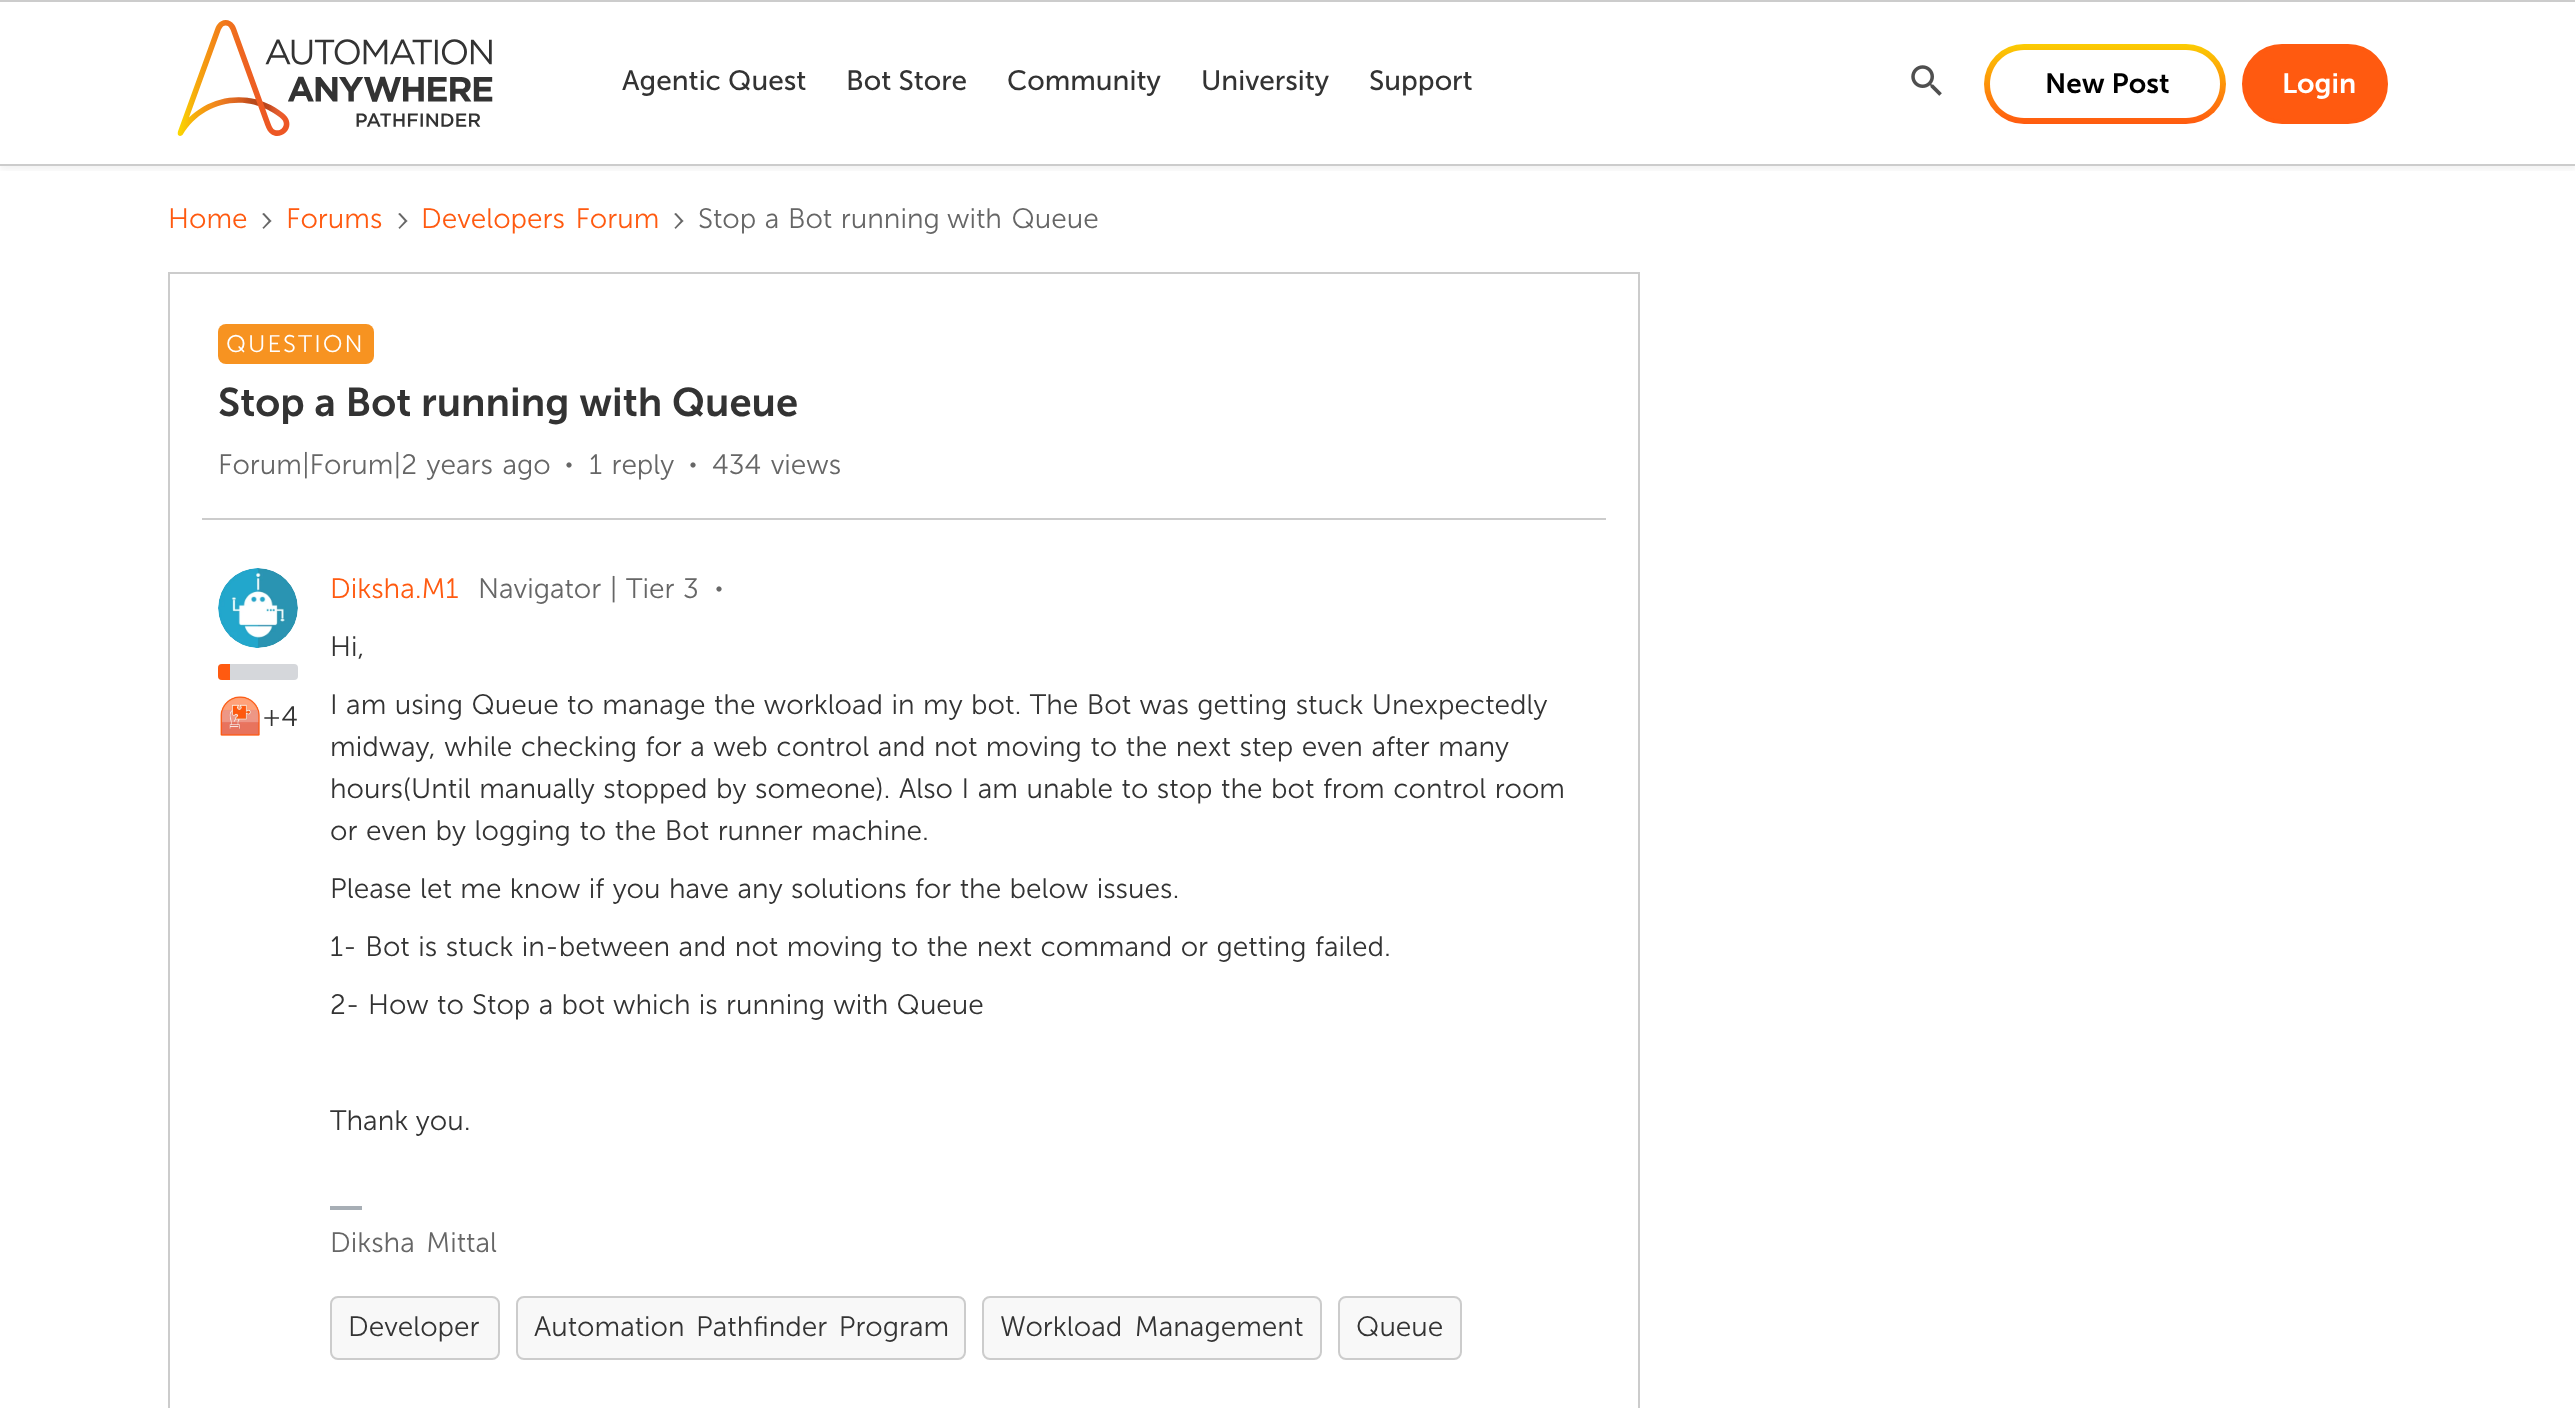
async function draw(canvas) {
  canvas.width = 2575;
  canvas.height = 1408;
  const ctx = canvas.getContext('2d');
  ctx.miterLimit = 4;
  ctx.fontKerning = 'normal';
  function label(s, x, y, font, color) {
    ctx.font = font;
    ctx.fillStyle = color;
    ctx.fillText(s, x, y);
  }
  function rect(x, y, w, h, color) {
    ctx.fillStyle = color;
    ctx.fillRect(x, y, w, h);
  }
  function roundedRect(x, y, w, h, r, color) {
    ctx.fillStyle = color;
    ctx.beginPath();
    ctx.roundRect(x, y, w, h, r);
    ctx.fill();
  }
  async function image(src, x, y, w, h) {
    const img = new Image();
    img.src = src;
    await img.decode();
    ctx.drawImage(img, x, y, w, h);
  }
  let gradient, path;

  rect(0, 0, 2575, 1408, '#fff');
  ctx.save();
  ctx.beginPath();
  ctx.rect(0, 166, 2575, 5);
  ctx.clip();
  ctx.fillStyle = '#0000000d';
  ctx.filter = 'blur(3px)';
  ctx.beginPath();
  ctx.rect(0, 4, 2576, 166);
  ctx.fill();
  ctx.filter = 'none';
  ctx.restore();
  await image('assets/img1.png', 177, 20, 316, 116);
  label('Agentic Quest', 622, 90, '28px Museo Sans', '#333');
  label('Bot Store', 846, 90, '28px Museo Sans', '#333');
  label('Community', 1007, 90, '28px Museo Sans', '#333');
  label('University', 1201, 90, '28px Museo Sans', '#333');
  label('Support', 1369, 90, '28px Museo Sans', '#333');
  rect(0, 0, 2575, 2, '#ccc');
  rect(0, 164, 2575, 2, '#ccc');
  await image('assets/img2.png', 1911, 65, 31, 31);
  gradient = ctx.createLinearGradient(2105, 44, 2105, 124);
  gradient.addColorStop(0, '#fbcc03');
  gradient.addColorStop(1, '#ff5a10');
  ctx.fillStyle = gradient;
  ctx.beginPath();
  ctx.roundRect(1984, 44, 242, 80, 40);
  ctx.fill();
  ctx.fillStyle = '#fff';
  path = new Path2D('M2024 50C2005 50 1990 65 1990 84C1990 103 2005 118 2024 118H2186C2205 118 2220 103 2220 84C2220 65 2205 50 2186 50Z');
  ctx.fill(path);
  label('New Post', 2045, 93, '600 28px Museo Sans', '#000');
  ctx.fillStyle = '#ff5a10';
  ctx.beginPath();
  ctx.roundRect(2244, 46, 142, 76, 38);
  ctx.fill();
  ctx.strokeStyle = '#ff5a10';
  ctx.lineWidth = 4;
  ctx.stroke();
  label('Login', 2282, 93, '600 28px Museo Sans', '#fff');
  label('Home', 168, 228, '300 28px Museo Sans', '#ff5a10');
  await image('assets/img3.png', 262, 213, 10, 16);
  label('Forums', 286, 228, '300 28px Museo Sans', '#ff5a10');
  await image('assets/img3.png', 398, 213, 10, 16);
  ctx.wordSpacing = '3px';
  label('Developers Forum', 421, 228, '300 28px Museo Sans', '#ff5a10');
  await image('assets/img3.png', 674, 213, 10, 16);
  ctx.wordSpacing = '1px';
  label('Stop a Bot running', 698, 228, '300 28px Museo Sans', '#666');
  ctx.wordSpacing = '2px';
  label('with Queue', 947, 228, '300 28px Museo Sans', '#666');
  ctx.strokeStyle = '#ccc';
  ctx.lineWidth = 2;
  ctx.strokeRect(169, 273, 1470, 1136);
  roundedRect(218, 324, 156, 40, 8, '#f79321');
  ctx.letterSpacing = '2px';
  ctx.wordSpacing = '0px';
  label('QUESTION', 226, 352, '300 24px Museo Sans', '#fff');
  ctx.letterSpacing = '0px';
  label('Stop a Bot running with Queue', 218, 416, '600 40px Museo Sans', '#333');
  ctx.wordSpacing = '2px';
  label('Forum|Forum|2 years ago', 218, 474, '300 28px Museo Sans', '#666');
  await image('assets/img4.png', 566, 462, 6, 6);
  label('1 reply', 589, 474, '300 28px Museo Sans', '#666');
  await image('assets/img4.png', 690, 462, 6, 6);
  label('434 views', 712, 474, '300 28px Museo Sans', '#666');
  rect(202, 518, 1404, 2, '#ccc');
  ctx.wordSpacing = '0px';
  label('Diksha.M1', 330, 598, '300 28px Museo Sans', '#ff5a10');
  ctx.wordSpacing = '1px';
  label('Navigator | Tier 3', 478, 598, '300 28px Museo Sans', '#666');
  await image('assets/img4.png', 716, 586, 6, 6);
  await image('assets/img5.png', 218, 568, 80, 80);
  roundedRect(218, 664, 80, 16, 4, '#d5d7db');
  ctx.fillStyle = '#ff5a10';
  ctx.beginPath();
  ctx.roundRect(218, 664, 12, 16, [4, 0, 0, 4]);
  ctx.fill();
  await image('assets/img6.png', 220, 696, 40, 40);
  ctx.wordSpacing = '0px';
  label('+4', 262, 726, '300 28px Museo Sans', '#333');
  label('Hi,', 330, 656, '300 28px Museo Sans', '#333');
  ctx.wordSpacing = '0.9px';
  label('I am using Queue to manage the workload in my bot. The Bot was getting stuck Unexpectedly', 330, 714, '300 28px Museo Sans', '#333');
  ctx.wordSpacing = '1px';
  label('midway, while checking for a web control and not moving to the next step even after many', 330, 756, '300 28px Museo Sans', '#333');
  label('hours(Until manually stopped by someone). Also I am unable to stop the bot from control room', 330, 798, '300 28px Museo Sans', '#333');
  label('or even by logging to the Bot runner machine.', 330, 840, '300 28px Museo Sans', '#333');
  ctx.wordSpacing = '0.9px';
  label('Please let me know if you have any solutions for the below issues.', 330, 898, '300 28px Museo Sans', '#333');
  ctx.wordSpacing = '1px';
  label('1- Bot is stuck in-between and not moving to the next command or getting failed.', 330, 956, '300 28px Museo Sans', '#333');
  ctx.wordSpacing = '0.75px';
  label('2- How to Stop a bot which is running with Queue', 330, 1014, '300 28px Museo Sans', '#333');
  ctx.wordSpacing = '0px';
  label('Thank you.', 330, 1130, '300 28px Museo Sans', '#333');
  rect(330, 1206, 32, 4, '#a7aeb5');
  ctx.wordSpacing = '4px';
  label('Diksha Mittal', 330, 1252, '300 28px Museo Sans', '#666');
  ctx.fillStyle = '#f8f8f8';
  ctx.beginPath();
  ctx.roundRect(331, 1297, 168, 62, 7);
  ctx.fill();
  ctx.stroke();
  ctx.wordSpacing = '0px';
  label('Developer', 348, 1336, '300 28px Museo Sans', '#333');
  ctx.fillStyle = '#f8f8f8';
  ctx.beginPath();
  ctx.roundRect(517, 1297, 448, 62, 7);
  ctx.fill();
  ctx.stroke();
  ctx.wordSpacing = '4px';
  label('Automation Pathfinder Program', 534, 1336, '300 28px Museo Sans', '#333');
  ctx.fillStyle = '#f8f8f8';
  ctx.beginPath();
  ctx.roundRect(983, 1297, 338, 62, 7);
  ctx.fill();
  ctx.stroke();
  ctx.wordSpacing = '5px';
  label('Workload Management', 1000, 1336, '300 28px Museo Sans', '#333');
  ctx.fillStyle = '#f8f8f8';
  ctx.beginPath();
  ctx.roundRect(1339, 1297, 122, 62, 7);
  ctx.fill();
  ctx.stroke();
  ctx.wordSpacing = '0px';
  label('Queue', 1356, 1336, '300 28px Museo Sans', '#333');
}

draw(document.querySelector('canvas'));
